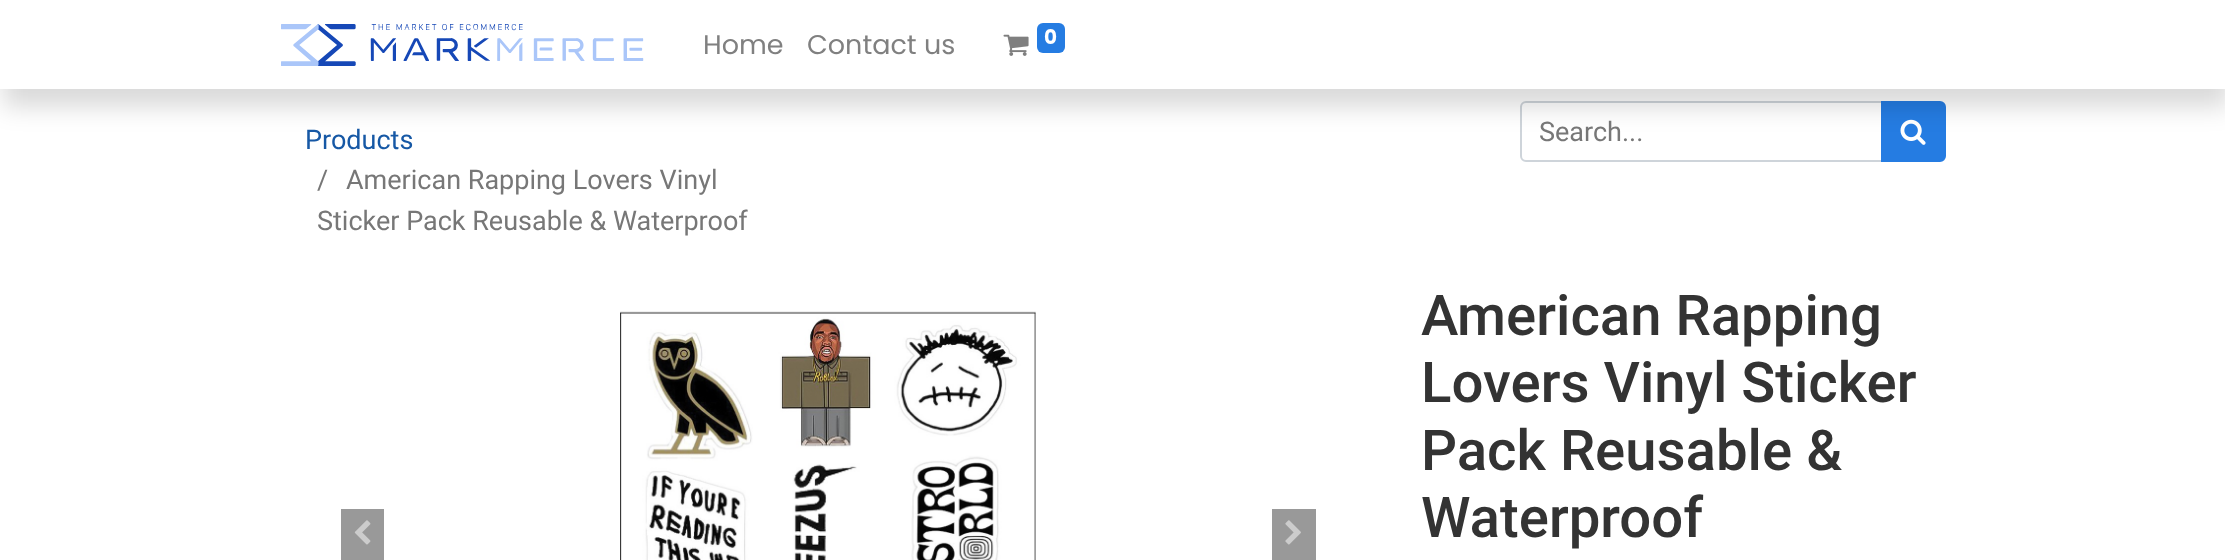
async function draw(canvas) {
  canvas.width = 2225;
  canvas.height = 560;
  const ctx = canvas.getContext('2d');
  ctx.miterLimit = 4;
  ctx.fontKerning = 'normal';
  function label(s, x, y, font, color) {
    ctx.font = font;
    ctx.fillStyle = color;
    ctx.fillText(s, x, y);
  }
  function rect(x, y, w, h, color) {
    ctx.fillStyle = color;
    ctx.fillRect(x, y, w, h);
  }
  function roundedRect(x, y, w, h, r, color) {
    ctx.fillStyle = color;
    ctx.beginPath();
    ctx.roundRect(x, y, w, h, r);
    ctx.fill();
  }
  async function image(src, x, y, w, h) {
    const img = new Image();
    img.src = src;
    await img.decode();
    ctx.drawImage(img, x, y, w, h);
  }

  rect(0, 0, 2225, 560, '#fff');
  ctx.beginPath();
  ctx.roundRect(1521, 102, 361, 59, [5, 0, 0, 5]);
  ctx.strokeStyle = '#ced4da';
  ctx.lineWidth = 2;
  ctx.stroke();
  ctx.fillStyle = '#257ce2';
  ctx.beginPath();
  ctx.roundRect(1882, 102, 63, 59, [0, 5, 5, 0]);
  ctx.fill();
  ctx.strokeStyle = '#257ce2';
  ctx.stroke();
  await image('assets/img3.png', 1900, 119, 26, 26);
  ctx.fillStyle = '#00000026';
  ctx.filter = 'blur(12px)';
  ctx.beginPath();
  ctx.rect(3, 18, 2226, 89);
  ctx.fill();
  ctx.filter = 'none';
  rect(0, 0, 2225, 89, '#fff');
  await image('assets/img1.png', 281, 24, 363, 42);
  label('Home', 703, 54, '27px Poppins', '#808080');
  label('Contact us', 807, 54, '27px Poppins', '#808080');
  await image('assets/img2.png', 1003, 34, 26, 22);
  roundedRect(1037, 23, 28, 30, 6, '#257ce2');
  label('0', 1044, 44, 'bold 20px Poppins', '#fff');
  label('Products', 305, 149, '27px Roboto', '#1658a5');
  label('/', 317, 189, '27px Roboto', '#777');
  label('American Rapping Lovers Vinyl', 346, 189, '27px Roboto', '#777');
  label('Sticker Pack Reusable & Waterproof', 317, 230, '27px Roboto', '#777');
  label('Search...', 1539, 141, '27px Roboto', '#777');
  rect(341, 509, 43, 51, '#999');
  await image('assets/img4.png', 354, 520, 17, 25);
  await image('assets/img5.png', 620, 311, 416, 249);
  rect(1272, 509, 44, 51, '#999');
  await image('assets/img6.png', 1285, 520, 16, 25);
  label('American Rapping', 1421, 335, '500 56.25px Roboto', '#333');
  label('Lovers Vinyl Sticker', 1421, 402, '500 56.25px Roboto', '#333');
  label('Pack Reusable &', 1421, 470, '500 56.25px Roboto', '#333');
  label('Waterproof', 1421, 537, '500 56.25px Roboto', '#333');
}

draw(document.querySelector('canvas'));
